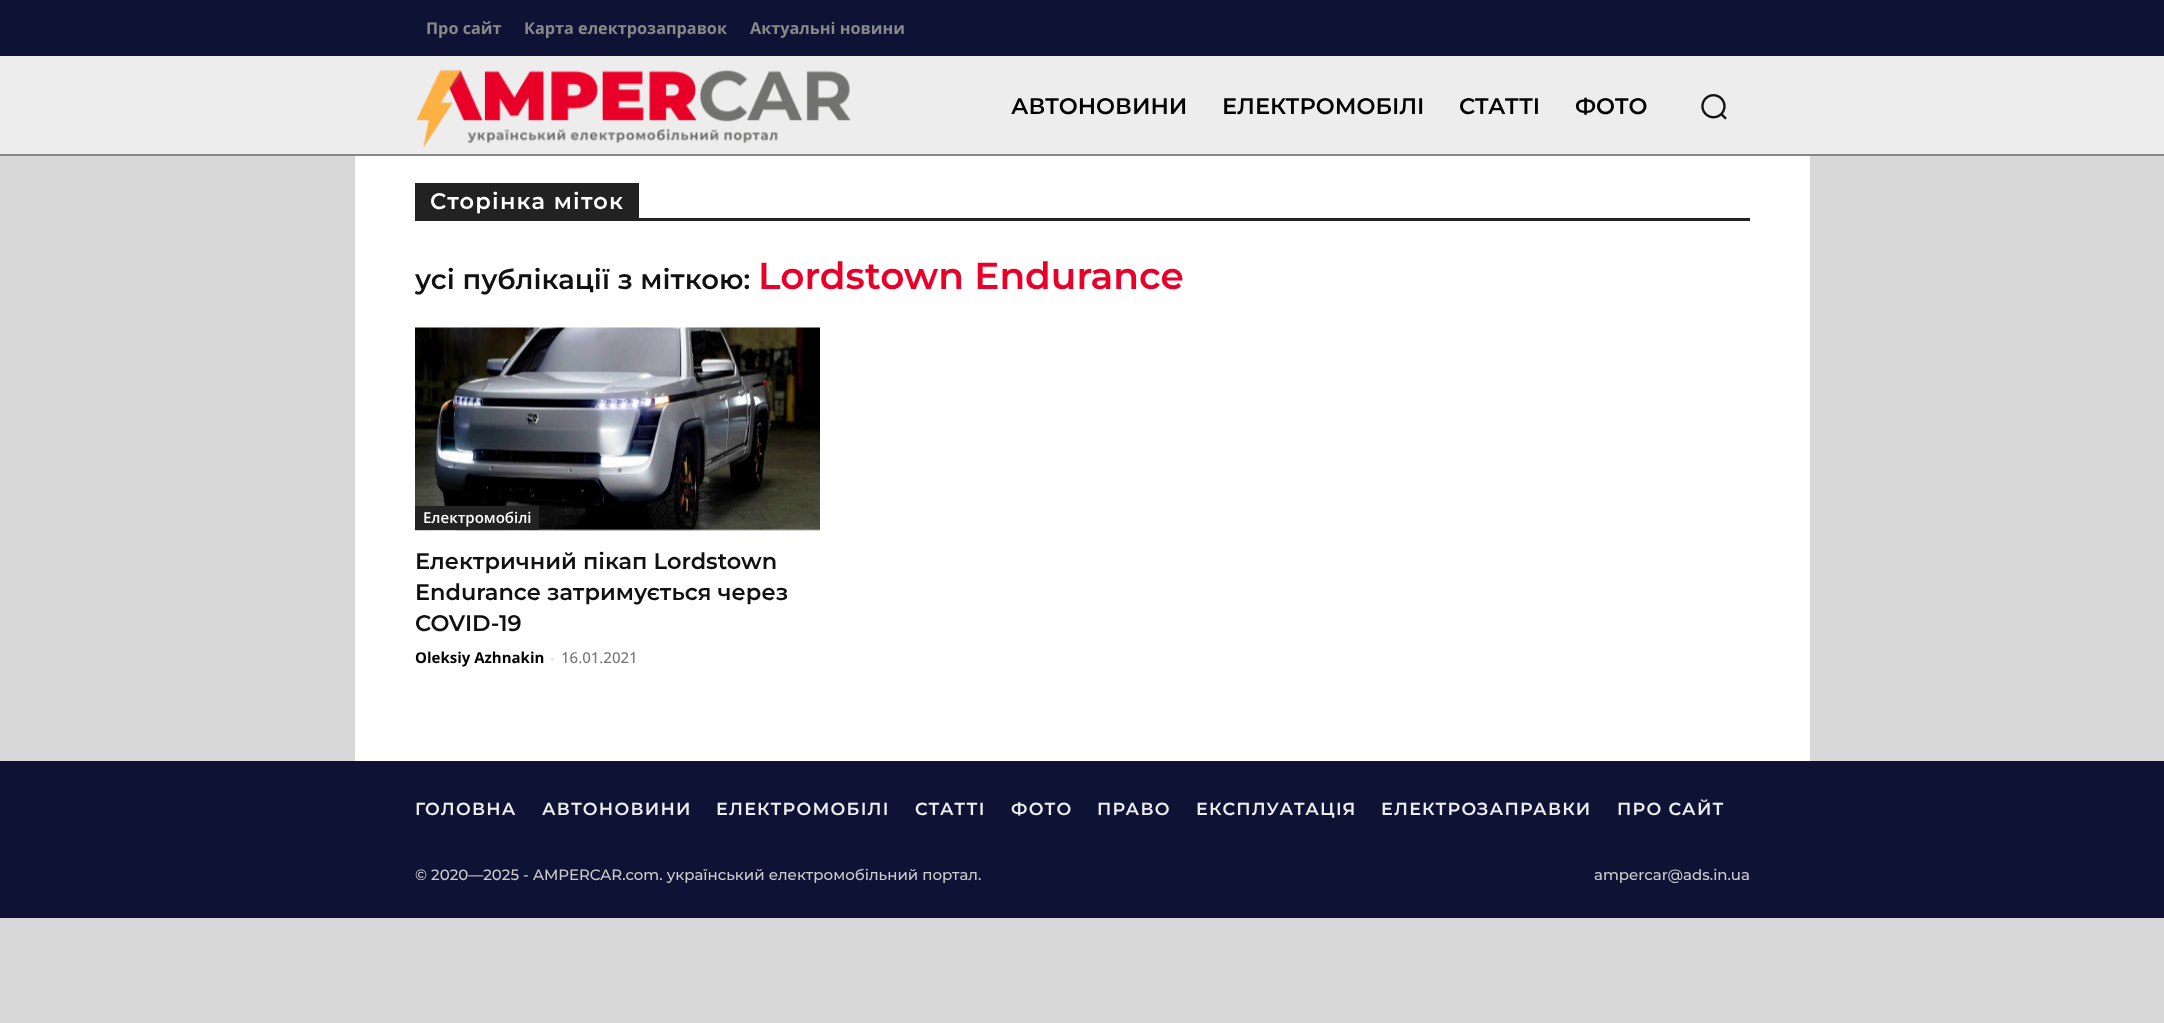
async function draw(canvas) {
  canvas.width = 2164;
  canvas.height = 1023;
  const ctx = canvas.getContext('2d');
  ctx.miterLimit = 4;
  ctx.fontKerning = 'normal';
  function label(s, x, y, font, color) {
    ctx.font = font;
    ctx.fillStyle = color;
    ctx.fillText(s, x, y);
  }
  function rect(x, y, w, h, color) {
    ctx.fillStyle = color;
    ctx.fillRect(x, y, w, h);
  }
  async function image(src, x, y, w, h) {
    const img = new Image();
    img.src = src;
    await img.decode();
    ctx.drawImage(img, x, y, w, h);
  }

  rect(0, 0, 2164, 1023, '#d8d8d8');
  rect(0, 0, 2164, 56, '#0e1335');
  label('Про сайт', 426, 34, 'bold 16.25px Open Sans', '#898989');
  label('Карта електрозаправок', 524, 34, 'bold 16.25px Open Sans', '#898989');
  label('Актуальні новини', 750, 34, 'bold 16.25px Open Sans', '#898989');
  rect(0, 56, 2164, 98, '#ededed');
  rect(0, 154, 2164, 2, '#888');
  await image('assets/img1.png', 416, 69, 435, 79);
  label('АВТОНОВИНИ', 1011, 114, '600 22.5px Montserrat', '#000');
  label('ЕЛЕКТРОМОБІЛІ', 1222, 114, '600 22.5px Montserrat', '#000');
  label('СТАТТІ', 1459, 114, '600 22.5px Montserrat', '#000');
  label('ФОТО', 1575, 114, '600 22.5px Montserrat', '#000');
  await image('assets/img2.png', 1701, 94, 26, 26);
  rect(355, 156, 1455, 605, '#fff');
  rect(415, 218, 1335, 3, '#222');
  rect(415, 183, 224, 35, '#222');
  ctx.letterSpacing = '1.25px';
  label('Сторінка міток', 430, 209, '600 22.5px Montserrat', '#fff');
  ctx.letterSpacing = '0px';
  label('усі публікації з міткою:', 415, 289, '600 27.5px Montserrat', '#111');
  label('Lordstown Endurance', 758, 289, '600 37.5px Montserrat', '#e80028');
  await image('assets/img3.png', 415, 327, 405, 204);
  rect(415, 506, 124, 24, '#222');
  label('Електромобілі', 423, 523, '600 15px Open Sans', '#fff');
  label('Електричний пікап Lordstown', 415, 569, '600 22.5px Montserrat', '#111');
  label('Endurance затримується через', 415, 600, '600 22.5px Montserrat', '#111');
  label('COVID-19', 415, 631, '600 22.5px Montserrat', '#111');
  label('Oleksiy Azhnakin', 415, 663, 'bold 15px Open Sans', '#000');
  label('-', 550, 663, '14px Open Sans', '#ccc');
  label('16.01.2021', 561, 663, '500 15px Open Sans', '#767676');
  rect(0, 761, 2164, 157, '#0e1335');
  ctx.letterSpacing = '1.25px';
  label('ГОЛОВНА', 415, 815, '600 17.5px Montserrat', '#ededed');
  label('АВТОНОВИНИ', 542, 815, '600 17.5px Montserrat', '#ededed');
  label('ЕЛЕКТРОМОБІЛІ', 716, 815, '600 17.5px Montserrat', '#ededed');
  label('СТАТТІ', 915, 815, '600 17.5px Montserrat', '#ededed');
  label('ФОТО', 1011, 815, '600 17.5px Montserrat', '#ededed');
  label('ПРАВО', 1097, 815, '600 17.5px Montserrat', '#ededed');
  label('ЕКСПЛУАТАЦІЯ', 1196, 815, '600 17.5px Montserrat', '#ededed');
  label('ЕЛЕКТРОЗАПРАВКИ', 1381, 815, '600 17.5px Montserrat', '#ededed');
  label('ПРО САЙТ', 1617, 815, '600 17.5px Montserrat', '#ededed');
  ctx.letterSpacing = '0px';
  label('© 2020—2025 - AMPERCAR.com. український електромобільний портал.', 415, 880, '500 15px Montserrat', '#ccc');
  label('ampercar@ads.in.ua', 1594, 880, '500 15px Montserrat', '#ccc');
}

draw(document.querySelector('canvas'));
